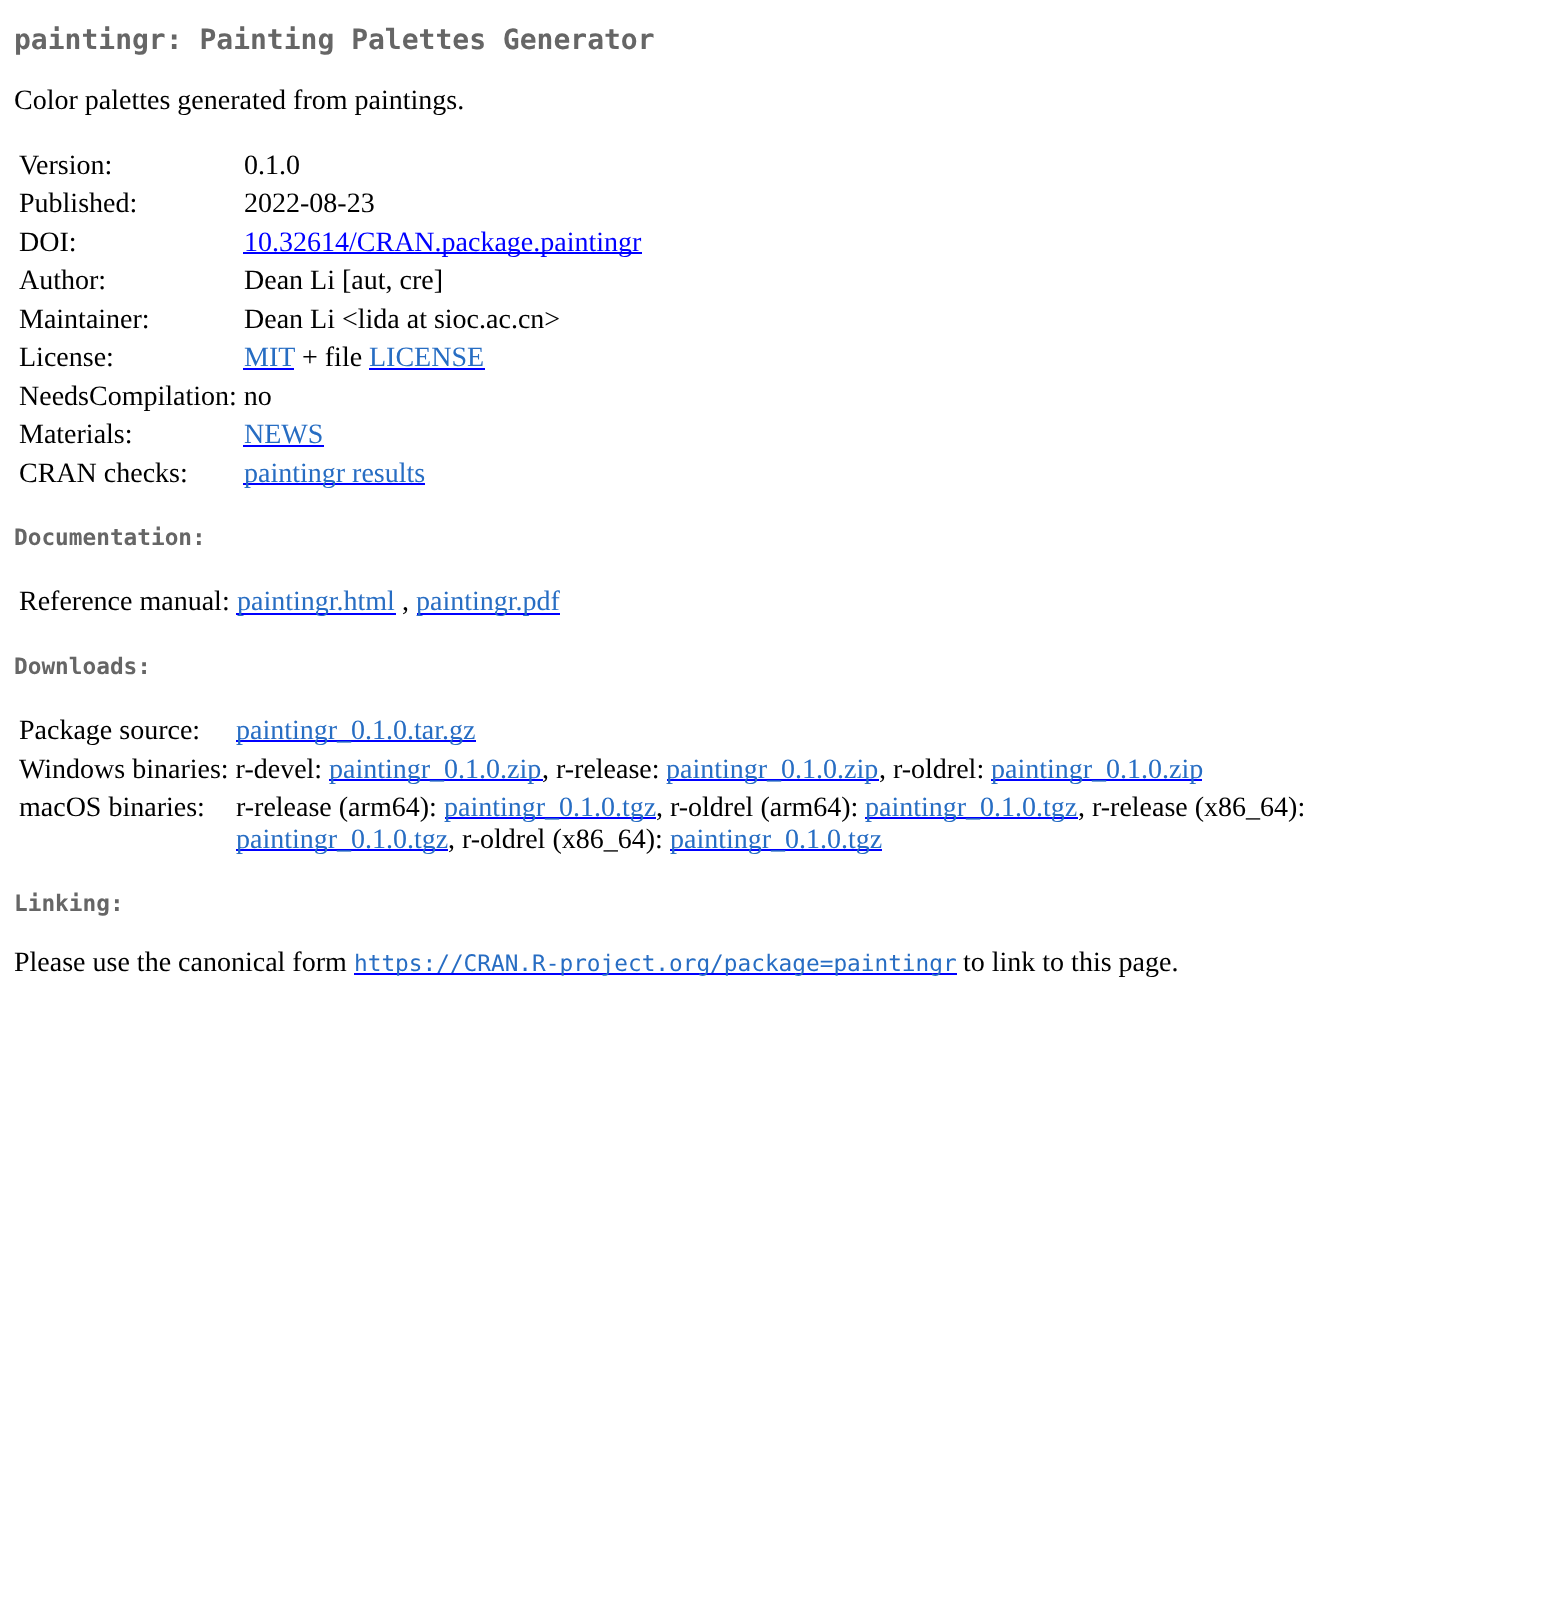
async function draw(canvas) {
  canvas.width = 1547;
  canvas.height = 1617;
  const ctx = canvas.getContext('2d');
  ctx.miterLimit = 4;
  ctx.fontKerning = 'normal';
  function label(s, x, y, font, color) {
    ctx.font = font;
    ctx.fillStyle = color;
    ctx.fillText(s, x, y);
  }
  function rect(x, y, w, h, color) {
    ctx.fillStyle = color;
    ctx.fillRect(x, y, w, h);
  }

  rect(0, 0, 1547, 1617, '#fff');
  label('paintingr: Painting Palettes Generator', 14, 49, 'bold 28px DejaVu Sans Mono', '#666');
  label('Color palettes generated from paintings.', 14, 109, '28px Liberation Serif', '#000');
  label('Version:', 19, 174, '28px Liberation Serif', '#000');
  label('0.1.0', 244, 174, '28px Liberation Serif', '#000');
  label('Published:', 19, 212, '28px Liberation Serif', '#000');
  label('2022-08-23', 244, 212, '28px Liberation Serif', '#000');
  label('DOI:', 19, 251, '28px Liberation Serif', '#000');
  rect(243, 252, 399, 2, '#00f');
  label('10.32614/CRAN.package.paintingr', 244, 251, '28px Liberation Serif', '#00f');
  label('Author:', 19, 289, '28px Liberation Serif', '#000');
  label('Dean Li [aut, cre]', 244, 289, '28px Liberation Serif', '#000');
  label('Maintainer:', 19, 328, '28px Liberation Serif', '#000');
  label('Dean Li <lida at sioc.ac.cn>', 244, 328, '28px Liberation Serif', '#000');
  label('License:', 19, 366, '28px Liberation Serif', '#000');
  label('MIT', 244, 366, '28px Liberation Serif', '#276dc3');
  rect(243, 368, 51, 2, '#00f');
  label('+ file', 302, 366, '28px Liberation Serif', '#000');
  label('LICENSE', 369, 366, '28px Liberation Serif', '#276dc3');
  rect(369, 368, 116, 2, '#00f');
  label('NeedsCompilation: no', 19, 405, '28px Liberation Serif', '#000');
  label('Materials:', 19, 443, '28px Liberation Serif', '#000');
  label('NEWS', 244, 443, '28px Liberation Serif', '#276dc3');
  rect(243, 445, 81, 2, '#00f');
  label('CRAN checks:', 19, 482, '28px Liberation Serif', '#000');
  rect(243, 483, 182, 2, '#00f');
  label('paintingr results', 244, 482, '28px Liberation Serif', '#276dc3');
  label('Documentation:', 14, 545, 'bold 22.75px DejaVu Sans Mono', '#666');
  label('Reference manual:', 19, 610, '28px Liberation Serif', '#000');
  rect(236, 613, 160, 2, '#00f');
  label('paintingr.html', 237, 610, '28px Liberation Serif', '#276dc3');
  label(',', 402, 610, '28px Liberation Serif', '#000');
  rect(417, 613, 143, 2, '#00f');
  label('paintingr.pdf', 416, 610, '28px Liberation Serif', '#276dc3');
  label('Downloads:', 14, 674, 'bold 22.75px DejaVu Sans Mono', '#666');
  label('Package source:', 19, 739, '28px Liberation Serif', '#000');
  rect(236, 740, 240, 2, '#00f');
  label('paintingr_0.1.0.tar.gz', 236, 739, '28px Liberation Serif', '#276dc3');
  label('Windows binaries: r-devel:', 19, 778, '28px Liberation Serif', '#000');
  rect(329, 779, 214, 2, '#00f');
  label('paintingr_0.1.0.zip', 329, 778, '28px Liberation Serif', '#276dc3');
  label(', r-release:', 542, 778, '28px Liberation Serif', '#000');
  rect(667, 779, 212, 2, '#00f');
  label('paintingr_0.1.0.zip', 666, 778, '28px Liberation Serif', '#276dc3');
  label(', r-oldrel:', 879, 778, '28px Liberation Serif', '#000');
  rect(991, 779, 211, 2, '#00f');
  label('paintingr_0.1.0.zip', 991, 778, '28px Liberation Serif', '#276dc3');
  label('macOS binaries:', 19, 816, '28px Liberation Serif', '#000');
  label('r-release (arm64):', 236, 816, '28px Liberation Serif', '#000');
  rect(445, 817, 211, 2, '#00f');
  label('paintingr_0.1.0.tgz', 444, 816, '28px Liberation Serif', '#276dc3');
  label(', r-oldrel (arm64):', 656, 816, '28px Liberation Serif', '#000');
  rect(865, 817, 213, 2, '#00f');
  label('paintingr_0.1.0.tgz', 865, 816, '28px Liberation Serif', '#276dc3');
  label(', r-release (x86_64):', 1078, 816, '28px Liberation Serif', '#000');
  rect(236, 849, 212, 2, '#00f');
  label('paintingr_0.1.0.tgz', 236, 848, '28px Liberation Serif', '#276dc3');
  label(', r-oldrel (x86_64):', 448, 848, '28px Liberation Serif', '#000');
  rect(670, 849, 212, 2, '#00f');
  label('paintingr_0.1.0.tgz', 670, 848, '28px Liberation Serif', '#276dc3');
  label('Linking:', 14, 911, 'bold 22.75px DejaVu Sans Mono', '#666');
  label('Please use the canonical form', 14, 971, '28px Liberation Serif', '#000');
  rect(354, 973, 603, 2, '#00f');
  label('https://CRAN.R-project.org/package=paintingr', 354, 971, '22.75px DejaVu Sans Mono', '#276dc3');
  label('to link to this page.', 963, 971, '28px Liberation Serif', '#000');
}

draw(document.querySelector('canvas'));
